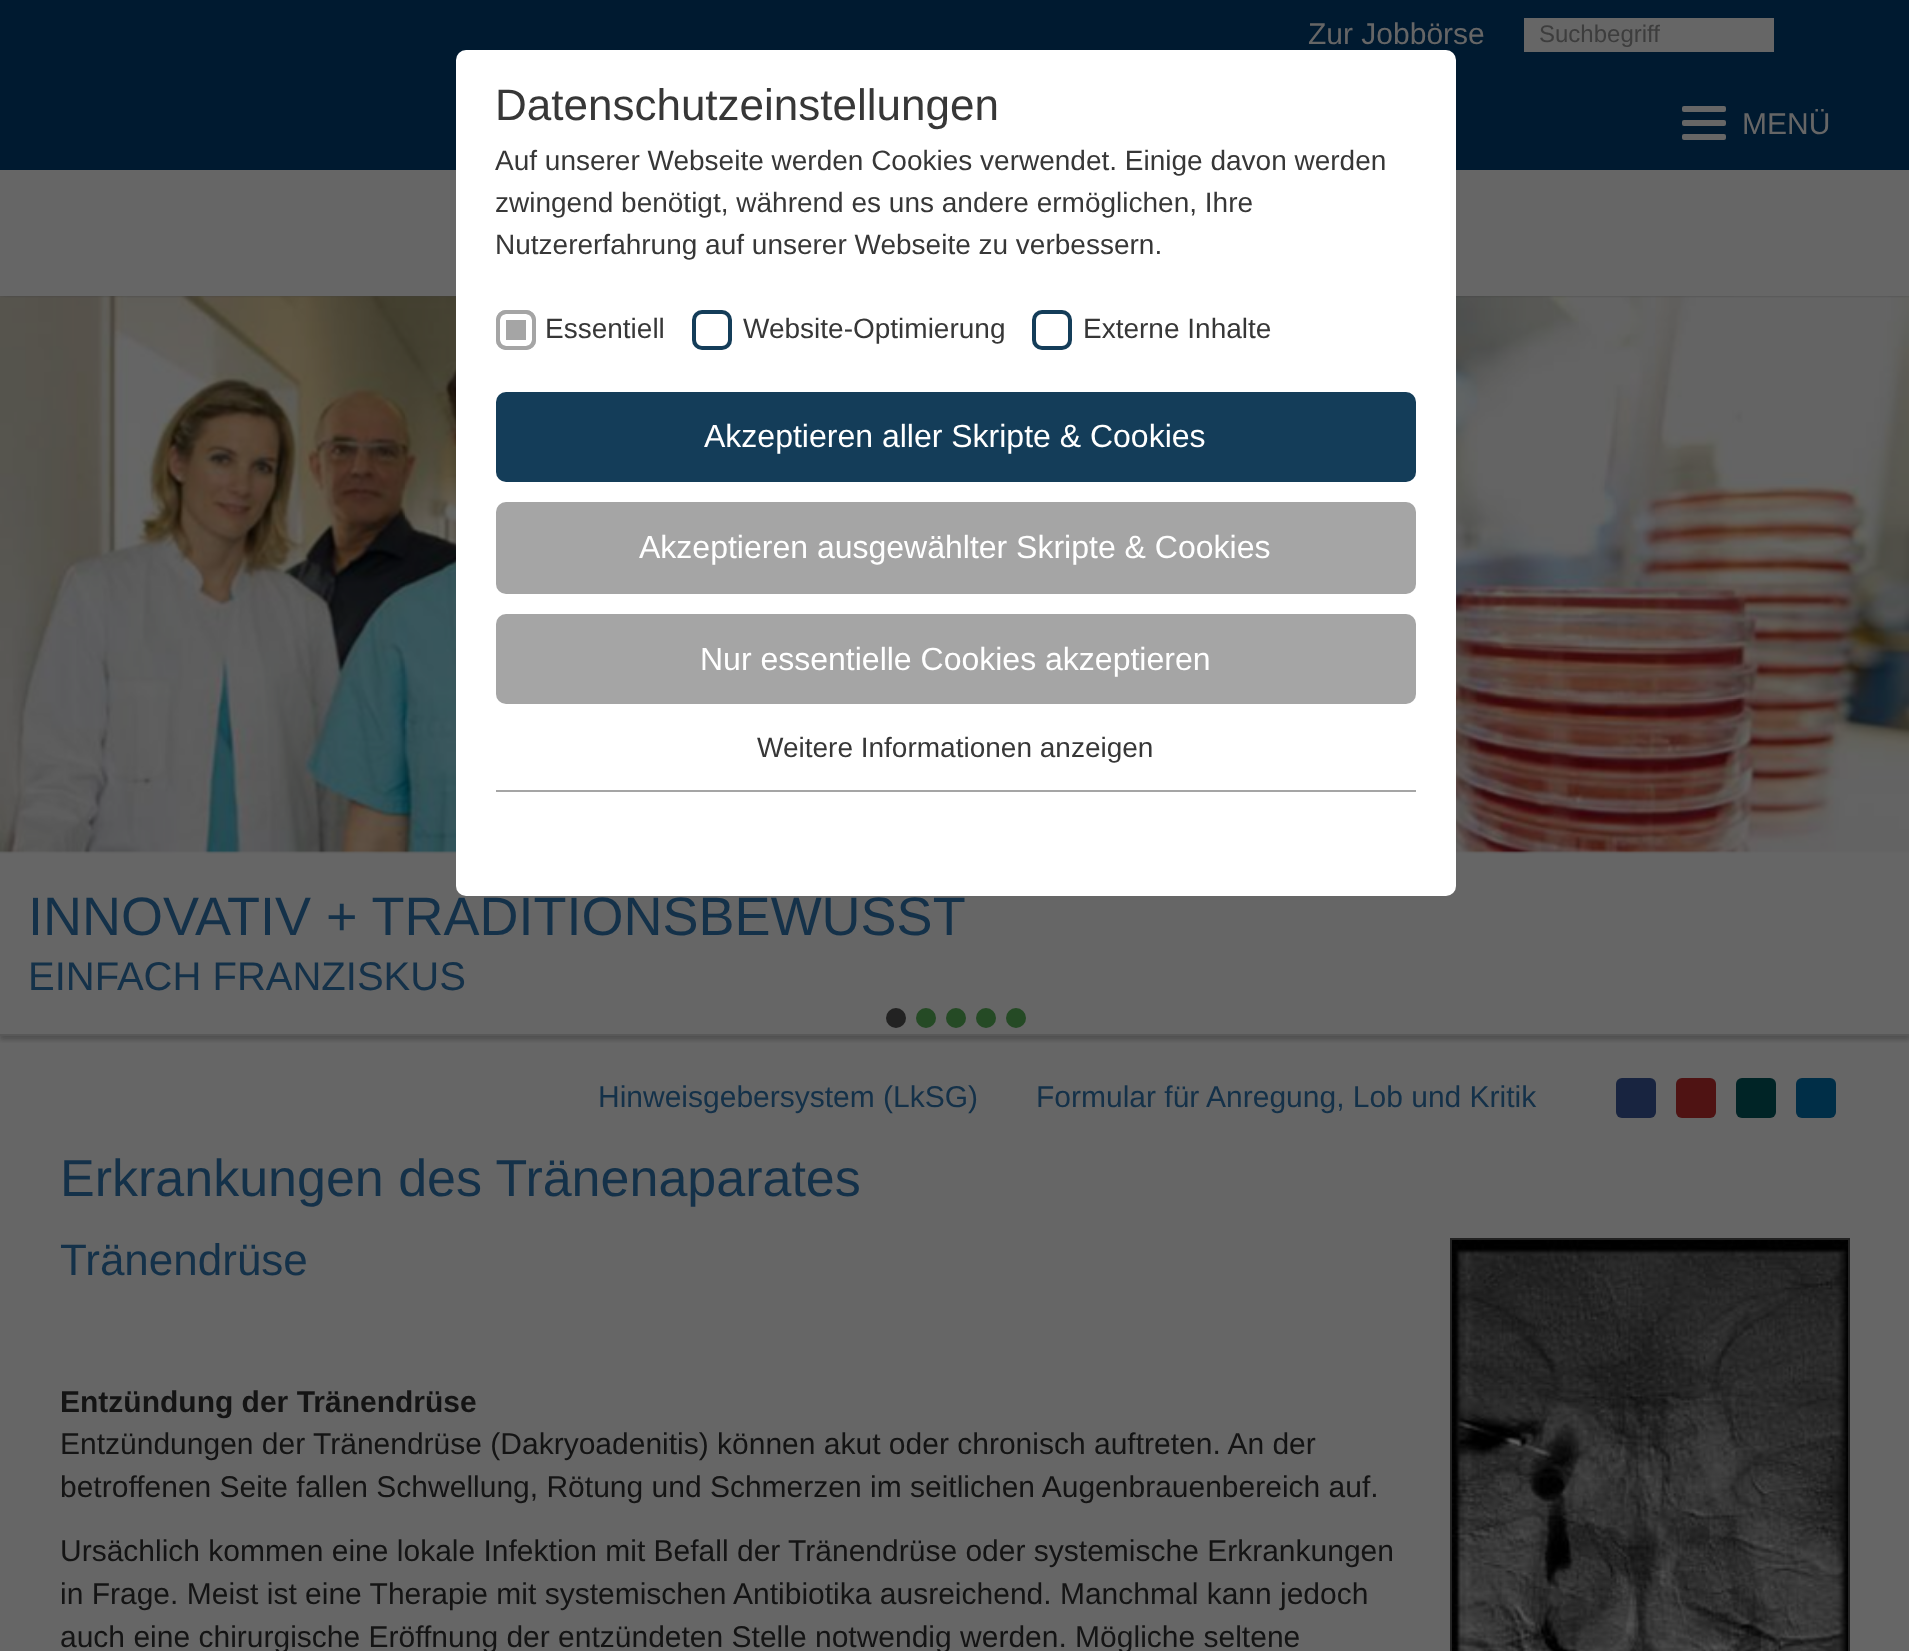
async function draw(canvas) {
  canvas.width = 1909;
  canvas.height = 1651;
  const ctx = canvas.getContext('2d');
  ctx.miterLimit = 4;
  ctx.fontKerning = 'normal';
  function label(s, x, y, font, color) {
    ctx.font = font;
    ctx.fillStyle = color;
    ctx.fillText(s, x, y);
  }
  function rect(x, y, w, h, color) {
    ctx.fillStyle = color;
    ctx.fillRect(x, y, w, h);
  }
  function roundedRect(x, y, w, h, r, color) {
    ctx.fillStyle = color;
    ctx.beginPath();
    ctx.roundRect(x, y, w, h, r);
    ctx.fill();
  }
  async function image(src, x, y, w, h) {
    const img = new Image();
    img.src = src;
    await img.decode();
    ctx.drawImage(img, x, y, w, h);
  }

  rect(0, 0, 1909, 1651, '#666');
  ctx.fillStyle = '#22222299';
  ctx.filter = 'blur(4px)';
  ctx.beginPath();
  ctx.rect(0, 6, 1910, 296);
  ctx.fill();
  ctx.filter = 'none';
  rect(0, 0, 1909, 170, '#001a30');
  rect(0, 170, 1909, 126, '#666');
  ctx.save();
  ctx.beginPath();
  ctx.rect(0, 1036, 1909, 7);
  ctx.clip();
  ctx.fillStyle = '#2222224d';
  ctx.filter = 'blur(2px)';
  ctx.beginPath();
  ctx.rect(0, 300, 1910, 740);
  ctx.fill();
  ctx.filter = 'none';
  ctx.restore();
  await image('assets/img1.png', 0, 296, 1909, 558);
  roundedRect(456, 50, 1000, 846, 10, '#fff');
  label('Datenschutzeinstellungen', 495, 120, '44px Liberation Sans', '#373737');
  label('Auf unserer Webseite werden Cookies verwendet. Einige davon werden', 495, 170, '28px Liberation Sans', '#373737');
  label('zwingend benötigt, während es uns andere ermöglichen, Ihre', 495, 212, '28px Liberation Sans', '#373737');
  label('Nutzererfahrung auf unserer Webseite zu verbessern.', 495, 254, '28px Liberation Sans', '#373737');
  roundedRect(496, 310, 40, 40, 10, '#a5a5a5');
  ctx.beginPath();
  ctx.roundRect(503, 317, 26, 26, 3);
  ctx.strokeStyle = '#fff';
  ctx.lineWidth = 6;
  ctx.stroke();
  ctx.beginPath();
  ctx.roundRect(498, 312, 36, 36, 8);
  ctx.strokeStyle = '#a5a5a5';
  ctx.lineWidth = 4;
  ctx.stroke();
  label('Essentiell', 545, 338, '28px Liberation Sans', '#373737');
  ctx.beginPath();
  ctx.roundRect(694, 312, 36, 36, 8);
  ctx.strokeStyle = '#143d59';
  ctx.stroke();
  label('Website-Optimierung', 743, 338, '28px Liberation Sans', '#373737');
  ctx.beginPath();
  ctx.roundRect(1034, 312, 36, 36, 8);
  ctx.stroke();
  label('Externe Inhalte', 1083, 338, '28px Liberation Sans', '#373737');
  roundedRect(496, 392, 920, 90, 10, '#143d59');
  label('Akzeptieren aller Skripte & Cookies', 704, 447, '32px Liberation Sans', '#fff');
  roundedRect(496, 502, 920, 92, 10, '#a5a5a5');
  label('Akzeptieren ausgewählter Skripte & Cookies', 639, 558, '32px Liberation Sans', '#fff');
  roundedRect(496, 614, 920, 90, 10, '#a5a5a5');
  label('Nur essentielle Cookies akzeptieren', 700, 670, '32px Liberation Sans', '#fff');
  label('Weitere Informationen anzeigen', 757, 757, '28px Liberation Sans', '#373737');
  rect(496, 790, 920, 2, '#a5a5a5');
  label('Zur Jobbörse', 1308, 44, '30px Liberation Sans', '#666');
  rect(1524, 18, 250, 34, '#666');
  label('Suchbegriff', 1539, 42, '24px Liberation Sans', '#3d3d3d');
  roundedRect(1682, 106, 44, 6, 2, '#666');
  label('MENÜ', 1742, 134, '30px Liberation Sans', '#666');
  roundedRect(1682, 120, 44, 6, 2, '#666');
  roundedRect(1682, 134, 44, 6, 2, '#666');
  rect(0, 1034, 1909, 2, '#585858');
  label('INNOVATIV + TRADITIONSBEWUSST', 28, 935, '54px Liberation Sans', '#143149');
  label('EINFACH FRANZISKUS', 28, 990, '40px Liberation Sans', '#143149');
  ctx.fillStyle = '#222';
  ctx.beginPath();
  ctx.arc(896, 1018, 10, 0, 2 * Math.PI);
  ctx.fill();
  ctx.fillStyle = '#254a25';
  ctx.beginPath();
  ctx.arc(926, 1018, 10, 0, 2 * Math.PI);
  ctx.fill();
  ctx.beginPath();
  ctx.arc(956, 1018, 10, 0, 2 * Math.PI);
  ctx.fill();
  ctx.beginPath();
  ctx.arc(986, 1018, 10, 0, 2 * Math.PI);
  ctx.fill();
  ctx.beginPath();
  ctx.arc(1016, 1018, 10, 0, 2 * Math.PI);
  ctx.fill();
  label('Hinweisgebersystem (LkSG)', 598, 1107, '30px Liberation Sans', '#143149');
  label('Formular für Anregung, Lob und Kritik', 1036, 1107, '30px Liberation Sans', '#143149');
  roundedRect(1616, 1078, 40, 40, 6, '#182440');
  roundedRect(1676, 1078, 40, 40, 6, '#4f1313');
  roundedRect(1736, 1078, 40, 40, 6, '#002426');
  roundedRect(1796, 1078, 40, 40, 6, '#002e47');
  label('Erkrankungen des Tränenaparates', 60, 1196, '52px Liberation Sans', '#143149');
  label('Tränendrüse', 60, 1275, '44px Liberation Sans', '#143149');
  label('Entzündung der Tränendrüse', 60, 1412, 'bold 30px Liberation Sans', '#141414');
  label('Entzündungen der Tränendrüse (Dakryoadenitis) können akut oder chronisch auftreten. An der', 60, 1454, '30px Liberation Sans', '#141414');
  label('betroffenen Seite fallen Schwellung, Rötung und Schmerzen im seitlichen Augenbrauenbereich auf.', 60, 1497, '30px Liberation Sans', '#141414');
  label('Ursächlich kommen eine lokale Infektion mit Befall der Tränendrüse oder systemische Erkrankungen', 60, 1561, '30px Liberation Sans', '#141414');
  label('in Frage. Meist ist eine Therapie mit systemischen Antibiotika ausreichend. Manchmal kann jedoch', 60, 1604, '30px Liberation Sans', '#141414');
  label('auch eine chirurgische Eröffnung der entzündeten Stelle notwendig werden. Mögliche seltene', 60, 1647, '30px Liberation Sans', '#141414');
  ctx.strokeStyle = '#222';
  ctx.lineWidth = 2;
  ctx.strokeRect(1451, 1239, 398, 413);
  await image('assets/img2.png', 1452, 1240, 396, 411);
}

draw(document.querySelector('canvas'));
